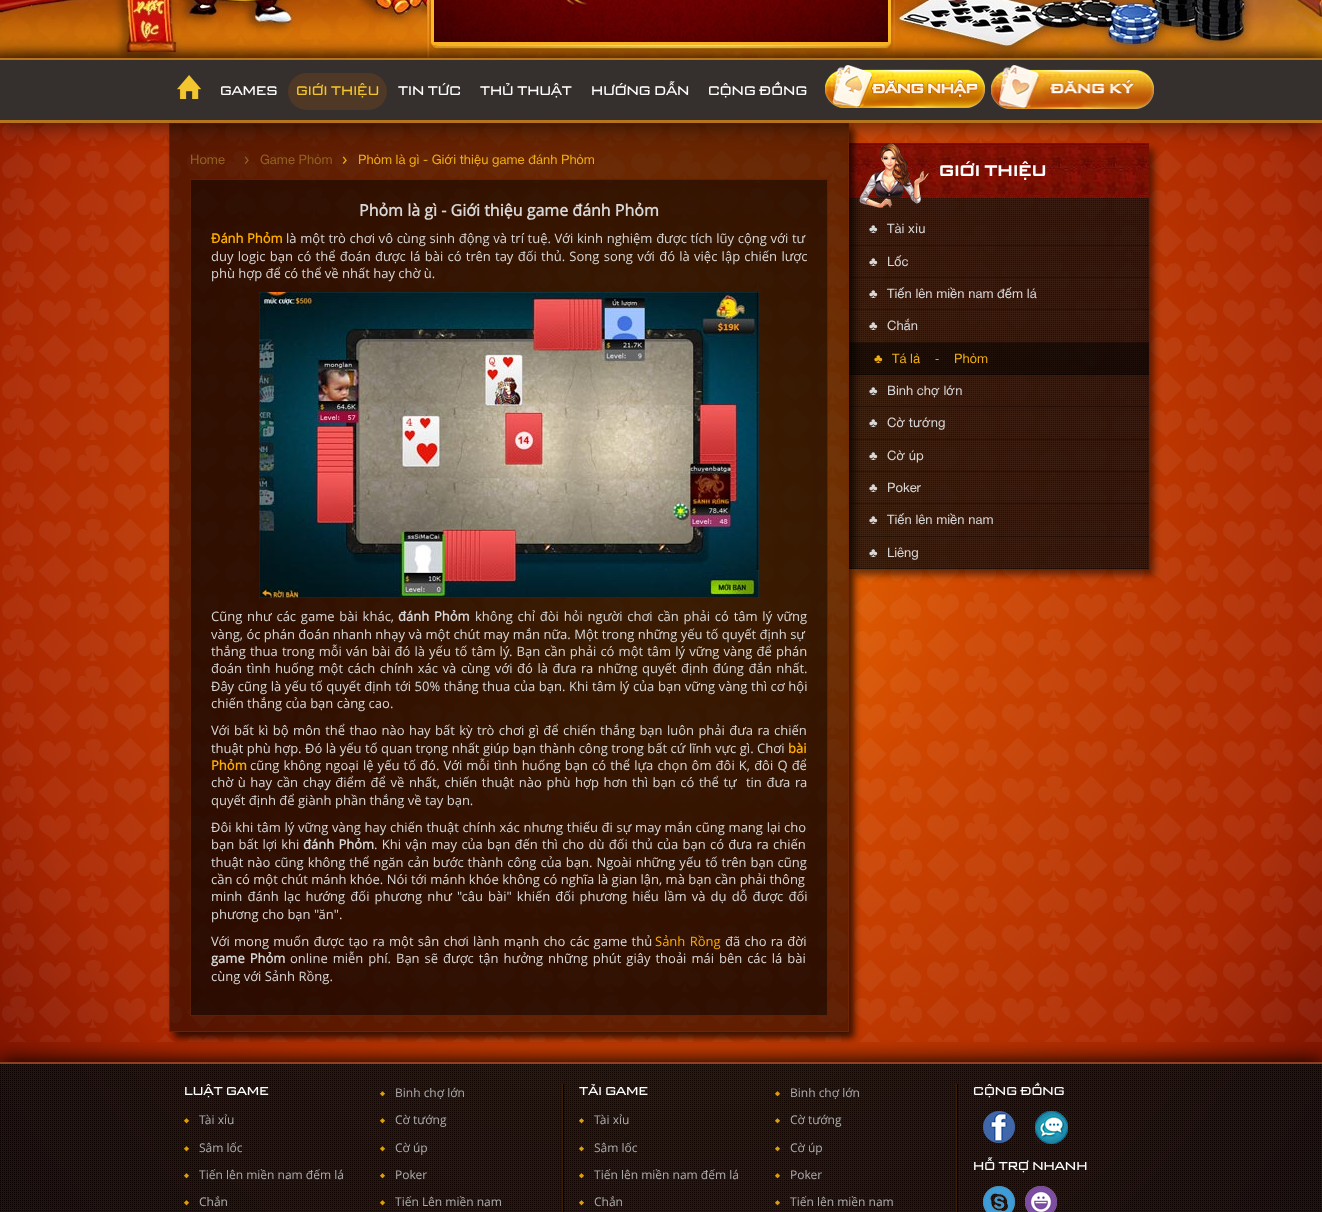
async function draw(canvas) {
  canvas.width = 1322;
  canvas.height = 1212;
  const ctx = canvas.getContext('2d');
  ctx.miterLimit = 4;
  ctx.fontKerning = 'normal';
  function label(s, x, y, font, color) {
    ctx.font = font;
    ctx.fillStyle = color;
    ctx.fillText(s, x, y);
  }
  function rect(x, y, w, h, color) {
    ctx.fillStyle = color;
    ctx.fillRect(x, y, w, h);
  }
  function roundedRect(x, y, w, h, r, color) {
    ctx.fillStyle = color;
    ctx.beginPath();
    ctx.roundRect(x, y, w, h, r);
    ctx.fill();
  }
  async function image(src, x, y, w, h) {
    const img = new Image();
    img.src = src;
    await img.decode();
    ctx.drawImage(img, x, y, w, h);
  }
  let gradient, path;

  rect(0, 0, 1322, 1212, '#fff');
  gradient = ctx.createRadialGradient(661, 418.33, 0, 661, 418.33, 935);
  gradient.addColorStop(0, '#f67e06');
  gradient.addColorStop(0.34, '#d04700');
  gradient.addColorStop(0.71, '#ab2700');
  gradient.addColorStop(1, '#5e0501');
  ctx.fillStyle = gradient;
  ctx.beginPath();
  ctx.rect(0, 123, 1322, 1089);
  ctx.save();
  ctx.clip();
  ctx.scale(1, 1122 / 935);
  ctx.fillRect(0, 0, 1322, 1010);
  ctx.restore();
  await image('assets/img1.png', 2, 123, 1320, 919);
  await image('assets/img2.png', 0, 0, 1322, 58);
  ctx.beginPath();
  ctx.roundRect(432.5, -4.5, 457, 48, 1.5);
  ctx.strokeStyle = '#ffb925';
  ctx.lineWidth = 3;
  ctx.stroke();
  await image('assets/img3.png', 434, 0, 454, 42);
  ctx.save();
  path = new Path2D('M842 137H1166V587H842ZM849 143H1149V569H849Z');
  ctx.clip(path, 'evenodd');
  ctx.fillStyle = '#00000080';
  ctx.filter = 'blur(3.5px)';
  ctx.beginPath();
  ctx.rect(854, 149, 300, 426);
  ctx.fill();
  ctx.filter = 'none';
  ctx.restore();
  await image('assets/img8.png', 849, 198, 300, 371);
  await image('assets/img9.png', 849, 143, 300, 55);
  await image('assets/img10.png', 859, 143, 70, 65);
  rect(849, 245, 300, 1, '#0000004d');
  rect(849, 277, 300, 1, '#0000004d');
  rect(849, 309, 300, 1, '#0000004d');
  rect(849, 342, 300, 1, '#0000004d');
  rect(849, 343, 300, 32, '#00000080');
  rect(849, 374, 300, 1, '#0000004d');
  rect(849, 406, 300, 1, '#0000004d');
  rect(849, 439, 300, 1, '#0000004d');
  rect(849, 471, 300, 1, '#0000004d');
  rect(849, 503, 300, 1, '#0000004d');
  rect(849, 536, 300, 1, '#0000004d');
  rect(849, 568, 300, 1, '#0000004d');
  ctx.save();
  path = new Path2D('M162 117H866V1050H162ZM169 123H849V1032H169Z');
  ctx.clip(path, 'evenodd');
  ctx.fillStyle = '#000000b3';
  ctx.filter = 'blur(3.5px)';
  ctx.beginPath();
  ctx.rect(174, 129, 680, 909);
  ctx.fill();
  ctx.filter = 'none';
  ctx.restore();
  ctx.save();
  ctx.beginPath();
  ctx.rect(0, 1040, 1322, 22);
  ctx.clip();
  ctx.fillStyle = '#000';
  ctx.filter = 'blur(10px)';
  ctx.beginPath();
  ctx.rect(0, 1061, 1322, 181);
  ctx.fill();
  ctx.filter = 'none';
  ctx.restore();
  rect(169, 123, 680, 909, '#00000080');
  ctx.strokeStyle = '#742a06b3';
  ctx.lineWidth = 1;
  ctx.strokeRect(169.5, 123.5, 679, 908);
  ctx.fillStyle = '#00000099';
  ctx.filter = 'blur(10.5px)';
  ctx.beginPath();
  ctx.rect(0, 60, 1322, 65);
  ctx.fill();
  ctx.filter = 'none';
  rect(0, 60, 1322, 60, '#35302e');
  rect(0, 58, 1322, 2, '#b6751d');
  rect(0, 120, 1322, 3, '#b6751d');
  await image('assets/img4.png', 177, 75, 24, 24);
  label('GAMES', 220, 95, '13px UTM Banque', '#fff');
  roundedRect(288, 73, 99, 37, 18.5, '#503826');
  label('GIỚI THIỆU', 296, 95, '13px UTM Banque', '#f3c62f');
  label('TIN TỨC', 398, 95, '13px UTM Banque', '#fff');
  label('THỦ THUẬT', 480, 95, '13px UTM Banque', '#fff');
  label('HƯỚNG DẪN', 591, 95, '13px UTM Banque', '#fff');
  label('CỘNG ĐỒNG', 708, 95, '13px UTM Banque', '#fff');
  await image('assets/img5.png', 825, 65, 160, 43);
  await image('assets/img6.png', 991, 65, 163, 44);
  label('Home', 190, 164, '13px Helvetica Neue', '#936221');
  label('›', 244, 165, '18px Open Sans', '#936221');
  label('Game Phỏm', 260, 164, '13px Helvetica Neue', '#936221');
  label('›', 342, 165, '18px Open Sans', '#f0ae0f');
  label('Phỏm là gì - Giới thiệu game đánh Phỏm', 358, 164, '13px Helvetica Neue', '#f0ae0f');
  rect(190, 179, 638, 837, '#00000080');
  ctx.strokeRect(190.5, 179.5, 637, 836);
  label('Phỏm là gì - Giới thiệu game đánh Phỏm', 359, 216, 'bold 16px Open Sans', '#d8d8d8');
  label('Đánh Phỏm', 211, 243, 'bold 13px Open Sans', '#fdad00');
  ctx.wordSpacing = '0.3px';
  label('là một trò chơi vô cùng sinh động và trí tuệ. Với kinh nghiệm được tích lũy cộng với tư', 286, 243, '13px Open Sans', '#d8d8d8');
  ctx.wordSpacing = '0.9px';
  label('duy logic bạn có thể đoán được lá bài có trên tay đối thủ. Song song với đó là việc lập chiến lược', 211, 261, '13px Open Sans', '#d8d8d8');
  ctx.wordSpacing = '0px';
  label('phù hợp để có thể về nhất hay chờ ù.', 211, 278, '13px Open Sans', '#d8d8d8');
  await image('assets/img7.png', 259, 292, 500, 306);
  ctx.wordSpacing = '1.4px';
  label('Cũng như các game bài khác,', 211, 621, '13px Open Sans', '#d8d8d8');
  label('đánh Phỏm', 398, 621, 'bold 13px Open Sans', '#d8d8d8');
  label('không chỉ đòi hỏi người chơi cần phải có tâm lý vững', 475, 621, '13px Open Sans', '#d8d8d8');
  ctx.wordSpacing = '0px';
  label('vàng, óc phán đoán nhanh nhạy và một chút may mắn nữa. Một trong những yếu tố quyết định sự', 211, 639, '13px Open Sans', '#d8d8d8');
  ctx.wordSpacing = '0.75px';
  label('thắng thua trong mỗi ván bài đó là yếu tố tâm lý. Bạn cần phải có một tâm lý vững vàng để phán', 211, 656, '13px Open Sans', '#d8d8d8');
  ctx.wordSpacing = '1.2px';
  label('đoán tình huống một cách chính xác và cùng với đó là đưa ra những quyết định đúng đắn nhất.', 211, 673, '13px Open Sans', '#d8d8d8');
  ctx.wordSpacing = '0.25px';
  label('Đây cũng là yếu tố quyết định tới 50% thắng thua của bạn. Khi tâm lý của bạn vững vàng thì cơ hội', 211, 691, '13px Open Sans', '#d8d8d8');
  ctx.wordSpacing = '0px';
  label('chiến thắng của bạn càng cao.', 211, 708, '13px Open Sans', '#d8d8d8');
  ctx.wordSpacing = '1px';
  label('Với bất kì bộ môn thể thao nào hay bất kỳ trò chơi gì để chiến thắng bạn luôn phải đưa ra chiến', 211, 735, '13px Open Sans', '#d8d8d8');
  ctx.wordSpacing = '0.1px';
  label('thuật phù hợp. Đó là yếu tố quan trọng nhất giúp bạn thành công trong bất cứ lĩnh vực gì. Chơi', 211, 753, '13px Open Sans', '#d8d8d8');
  ctx.wordSpacing = '0px';
  label('bài', 788, 753, 'bold 13px Open Sans', '#fdad00');
  label('Phỏm', 211, 770, 'bold 13px Open Sans', '#fdad00');
  ctx.wordSpacing = '0.75px';
  label('cũng không ngoại lệ yếu tố đó. Với mỗi tình huống bạn có thể lựa chọn ôm đôi K, đôi Q để', 250, 770, '13px Open Sans', '#d8d8d8');
  ctx.wordSpacing = '1.25px';
  label('chờ ù hay cần chạy điểm để về nhất, chiến thuật nào phù hợp hơn thì bạn có thể tự  tin đưa ra', 211, 787, '13px Open Sans', '#d8d8d8');
  ctx.wordSpacing = '0px';
  label('quyết định để giành phần thắng về tay bạn.', 211, 805, '13px Open Sans', '#d8d8d8');
  ctx.wordSpacing = '0.3px';
  label('Đôi khi tâm lý vững vàng hay chiến thuật chính xác nhưng thiếu đi sự may mắn cũng mang lại cho', 211, 832, '13px Open Sans', '#d8d8d8');
  ctx.wordSpacing = '0.9px';
  label('bạn bất lợi khi', 211, 849, '13px Open Sans', '#d8d8d8');
  label('đánh Phỏm', 303, 849, 'bold 13px Open Sans', '#d8d8d8');
  label('. Khi vận may của bạn đến thì cho dù đối thủ của bạn có đưa ra chiến', 374, 849, '13px Open Sans', '#d8d8d8');
  ctx.wordSpacing = '0.6px';
  label('thuật nào cũng không thể ngăn cản bước thành công của bạn. Ngoài những yếu tố trên bạn cũng', 211, 867, '13px Open Sans', '#d8d8d8');
  ctx.wordSpacing = '0px';
  label('cần có một chút mánh khóe. Nói tới mánh khóe không có nghĩa là gian lận, mà bạn cần phải thông', 211, 884, '13px Open Sans', '#d8d8d8');
  ctx.wordSpacing = '1.75px';
  label('minh đánh lạc hướng đối phương như "câu bài" khiến đối phương hiểu lầm và dụ dỗ được đối', 211, 901, '13px Open Sans', '#d8d8d8');
  ctx.wordSpacing = '0px';
  label('phương cho bạn "ăn".', 211, 919, '13px Open Sans', '#d8d8d8');
  ctx.wordSpacing = '0.9px';
  label('Với mong muốn được tạo ra một sân chơi lành mạnh cho các game thủ', 211, 946, '13px Open Sans', '#d8d8d8');
  ctx.wordSpacing = '1px';
  label('Sảnh Rồng', 655, 946, '13px Open Sans', '#fdad00');
  ctx.wordSpacing = '0.9px';
  label('đã cho ra đời', 725, 946, '13px Open Sans', '#d8d8d8');
  ctx.wordSpacing = '1.6px';
  label('game Phỏm', 211, 963, 'bold 13px Open Sans', '#d8d8d8');
  label('online miễn phí. Bạn sẽ được tận hưởng những phút giây thoải mái bên các lá bài', 290, 963, '13px Open Sans', '#d8d8d8');
  ctx.wordSpacing = '0px';
  label('cùng với Sảnh Rồng.', 211, 981, '13px Open Sans', '#d8d8d8');
  label('GIỚI THIỆU', 939, 176, 'bold 16px UTM Banque', '#fff');
  label('♣', 869, 233, '13px Liberation Sans', '#d8d8d8');
  label('Tài xỉu', 887, 233, '13px Helvetica Neue', '#d8d8d8');
  label('♣', 869, 266, '13px Liberation Sans', '#d8d8d8');
  label('Lốc', 887, 266, '13px Helvetica Neue', '#d8d8d8');
  label('♣', 869, 298, '13px Liberation Sans', '#d8d8d8');
  label('Tiến lên miền nam đếm lá', 887, 298, '13px Helvetica Neue', '#d8d8d8');
  label('♣', 869, 330, '13px Liberation Sans', '#d8d8d8');
  label('Chắn', 887, 330, '13px Helvetica Neue', '#d8d8d8');
  label('♣', 874, 363, '13px Liberation Sans', '#f0ae0f');
  label('Tá lả', 892, 363, '13px Helvetica Neue', '#f0ae0f');
  label('-', 935, 363, '13px Open Sans', '#f0ae0f');
  label('Phỏm', 954, 363, '13px Helvetica Neue', '#f0ae0f');
  label('♣', 869, 395, '13px Liberation Sans', '#d8d8d8');
  label('Binh chợ lớn', 887, 395, '13px Helvetica Neue', '#d8d8d8');
  label('♣', 869, 427, '13px Liberation Sans', '#d8d8d8');
  label('Cờ tướng', 887, 427, '13px Helvetica Neue', '#d8d8d8');
  label('♣', 869, 460, '13px Liberation Sans', '#d8d8d8');
  label('Cờ úp', 887, 460, '13px Helvetica Neue', '#d8d8d8');
  label('♣', 869, 492, '13px Liberation Sans', '#d8d8d8');
  label('Poker', 887, 492, '13px Helvetica Neue', '#d8d8d8');
  label('♣', 869, 524, '13px Liberation Sans', '#d8d8d8');
  label('Tiến lên miền nam', 887, 524, '13px Helvetica Neue', '#d8d8d8');
  label('♣', 869, 557, '13px Liberation Sans', '#d8d8d8');
  label('Liêng', 887, 557, '13px Helvetica Neue', '#d8d8d8');
  await image('assets/img11.png', 0, 1062, 1322, 150);
  rect(0, 1062, 1322, 2, '#ff723380');
  rect(562, 1084, 1, 128, '#391c04');
  label('LUẬT GAME', 184, 1095, '12px UTM Banque', '#fff');
  await image('assets/img12.png', 184, 1118, 5, 6);
  label('Tài xỉu', 199, 1124, '12px Open Sans', '#adadad');
  await image('assets/img13.png', 184, 1146, 5, 6);
  label('Sâm lốc', 199, 1152, '12px Open Sans', '#adadad');
  await image('assets/img14.png', 184, 1173, 5, 6);
  label('Tiến lên miền nam đếm lá', 199, 1179, '12px Open Sans', '#adadad');
  await image('assets/img15.png', 184, 1200, 5, 6);
  label('Chắn', 199, 1206, '12px Open Sans', '#adadad');
  await image('assets/img16.png', 380, 1091, 5, 6);
  label('Binh chợ lớn', 395, 1097, '12px Open Sans', '#adadad');
  await image('assets/img17.png', 380, 1118, 5, 6);
  label('Cờ tướng', 395, 1124, '12px Open Sans', '#adadad');
  await image('assets/img18.png', 380, 1146, 5, 6);
  label('Cờ úp', 395, 1152, '12px Open Sans', '#adadad');
  await image('assets/img19.png', 380, 1173, 5, 6);
  label('Poker', 395, 1179, '12px Open Sans', '#adadad');
  await image('assets/img20.png', 380, 1200, 5, 6);
  label('Tiến Lên miền nam', 395, 1206, '12px Open Sans', '#adadad');
  rect(956, 1084, 1, 128, '#391c04');
  rect(563, 1084, 1, 128, '#000');
  label('TẢI GAME', 579, 1095, '12px UTM Banque', '#fff');
  await image('assets/img21.png', 579, 1118, 5, 6);
  label('Tài xỉu', 594, 1124, '12px Open Sans', '#adadad');
  await image('assets/img22.png', 579, 1146, 5, 6);
  label('Sâm lốc', 594, 1152, '12px Open Sans', '#adadad');
  await image('assets/img23.png', 579, 1173, 5, 6);
  label('Tiến lên miền nam đếm lá', 594, 1179, '12px Open Sans', '#adadad');
  await image('assets/img24.png', 579, 1200, 5, 6);
  label('Chắn', 594, 1206, '12px Open Sans', '#adadad');
  await image('assets/img25.png', 775, 1091, 5, 6);
  label('Binh chợ lớn', 790, 1097, '12px Open Sans', '#adadad');
  await image('assets/img26.png', 775, 1118, 5, 6);
  label('Cờ tướng', 790, 1124, '12px Open Sans', '#adadad');
  await image('assets/img22.png', 775, 1146, 5, 6);
  label('Cờ úp', 790, 1152, '12px Open Sans', '#adadad');
  await image('assets/img23.png', 775, 1173, 5, 6);
  label('Poker', 790, 1179, '12px Open Sans', '#adadad');
  await image('assets/img27.png', 775, 1200, 5, 6);
  label('Tiến lên miền nam', 790, 1206, '12px Open Sans', '#adadad');
  rect(957, 1084, 1, 128, '#000');
  label('CỘNG ĐỒNG', 973, 1095, '12px UTM Banque', '#fff');
  await image('assets/img28.png', 983, 1111, 32, 32);
  await image('assets/img29.png', 1035, 1111, 33, 33);
  label('HỖ TRỢ NHANH', 973, 1170, '12px UTM Banque', '#fff');
  await image('assets/img30.png', 983, 1186, 32, 26);
  await image('assets/img31.png', 1025, 1186, 32, 26);
}

draw(document.querySelector('canvas'));
